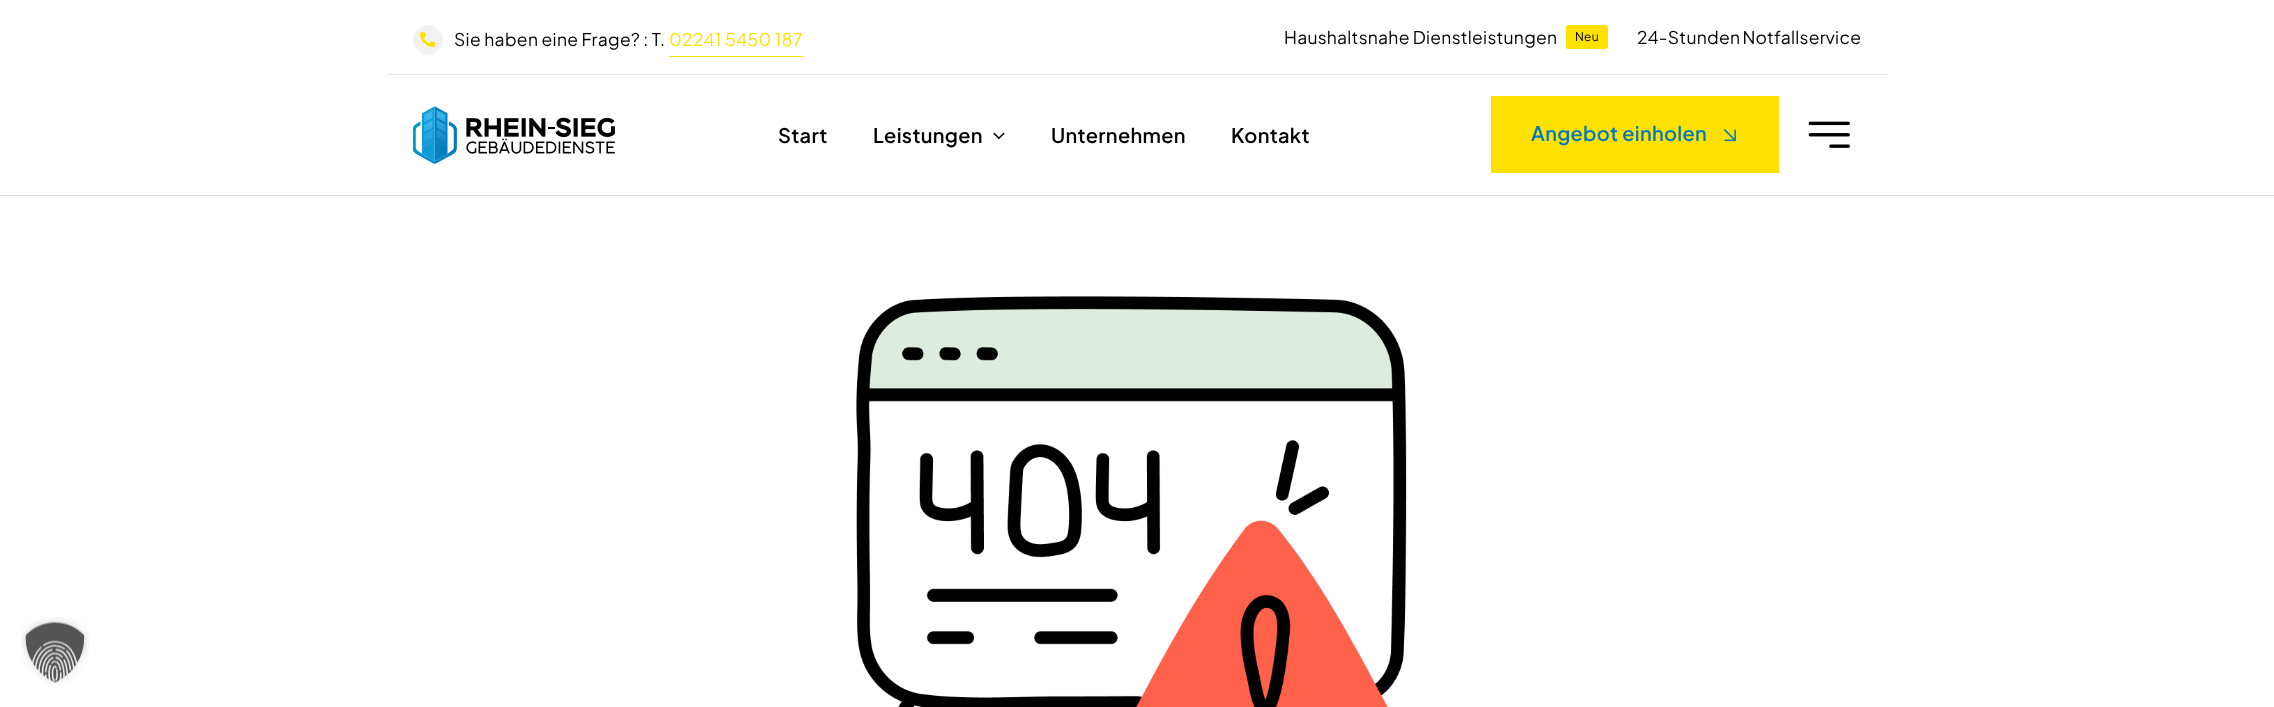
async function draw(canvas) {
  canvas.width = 2274;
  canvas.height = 707;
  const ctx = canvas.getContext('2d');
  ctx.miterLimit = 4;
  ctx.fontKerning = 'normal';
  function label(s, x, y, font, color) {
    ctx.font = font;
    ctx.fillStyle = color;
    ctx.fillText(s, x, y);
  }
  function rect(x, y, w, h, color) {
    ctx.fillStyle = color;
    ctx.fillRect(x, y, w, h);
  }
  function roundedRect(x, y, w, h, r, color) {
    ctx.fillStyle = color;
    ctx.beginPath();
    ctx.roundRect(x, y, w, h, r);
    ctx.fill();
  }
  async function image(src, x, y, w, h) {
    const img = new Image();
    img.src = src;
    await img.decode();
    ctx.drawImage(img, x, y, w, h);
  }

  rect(0, 0, 2274, 707, '#fff');
  rect(388, 74, 1500, 1, '#e4e4e4');
  ctx.fillStyle = '#f2f2f2';
  ctx.beginPath();
  ctx.arc(428, 40, 15, 0, 2 * Math.PI);
  ctx.fill();
  await image('assets/img1.png', 420, 31, 16, 17);
  ctx.letterSpacing = '0.3px';
  label('Sie haben eine Frage? : T.', 454, 46, '17.5px Plus Jakarta Sans', '#000');
  label('02241 5450 187', 669, 46, '17.5px Plus Jakarta Sans', '#ffe100');
  rect(669, 56, 134, 1, '#ffe100');
  ctx.letterSpacing = '0.25px';
  label('Haushaltsnahe Dienstleistungen', 1284, 44, '17.5px Plus Jakarta Sans', '#000');
  roundedRect(1566, 25, 42, 24, 2.5, '#ffe100');
  label('Neu', 1575, 41, '12px Plus Jakarta Sans', '#000');
  ctx.wordSpacing = '-1px';
  label('24-Stunden Notfallservice', 1637, 44, '17.5px Plus Jakarta Sans', '#000');
  rect(0, 195, 2274, 1, '#e4e4e4');
  await image('assets/img2.png', 413, 106, 202, 58);
  ctx.letterSpacing = '0.3px';
  ctx.wordSpacing = '0px';
  label('Start', 778, 143, '600 20px Plus Jakarta Sans', '#000');
  label('Leistungen', 873, 143, '600 20px Plus Jakarta Sans', '#000');
  await image('assets/img3.png', 993, 132, 12, 8);
  label('Unternehmen', 1051, 143, '600 20px Plus Jakarta Sans', '#000');
  label('Kontakt', 1231, 143, '600 20px Plus Jakarta Sans', '#000');
  rect(1491, 96, 288, 77, '#ffe100');
  label('Angebot einholen', 1531, 141, '600 20px Plus Jakarta Sans', '#037abd');
  await image('assets/img4.png', 1724, 129, 12, 13);
  await image('assets/img5.png', 1808, 121, 42, 27);
  await image('assets/img6.png', 856, 296, 551, 411);
  await image('assets/img7.png', 21, 617, 68, 68);
}

draw(document.querySelector('canvas'));
